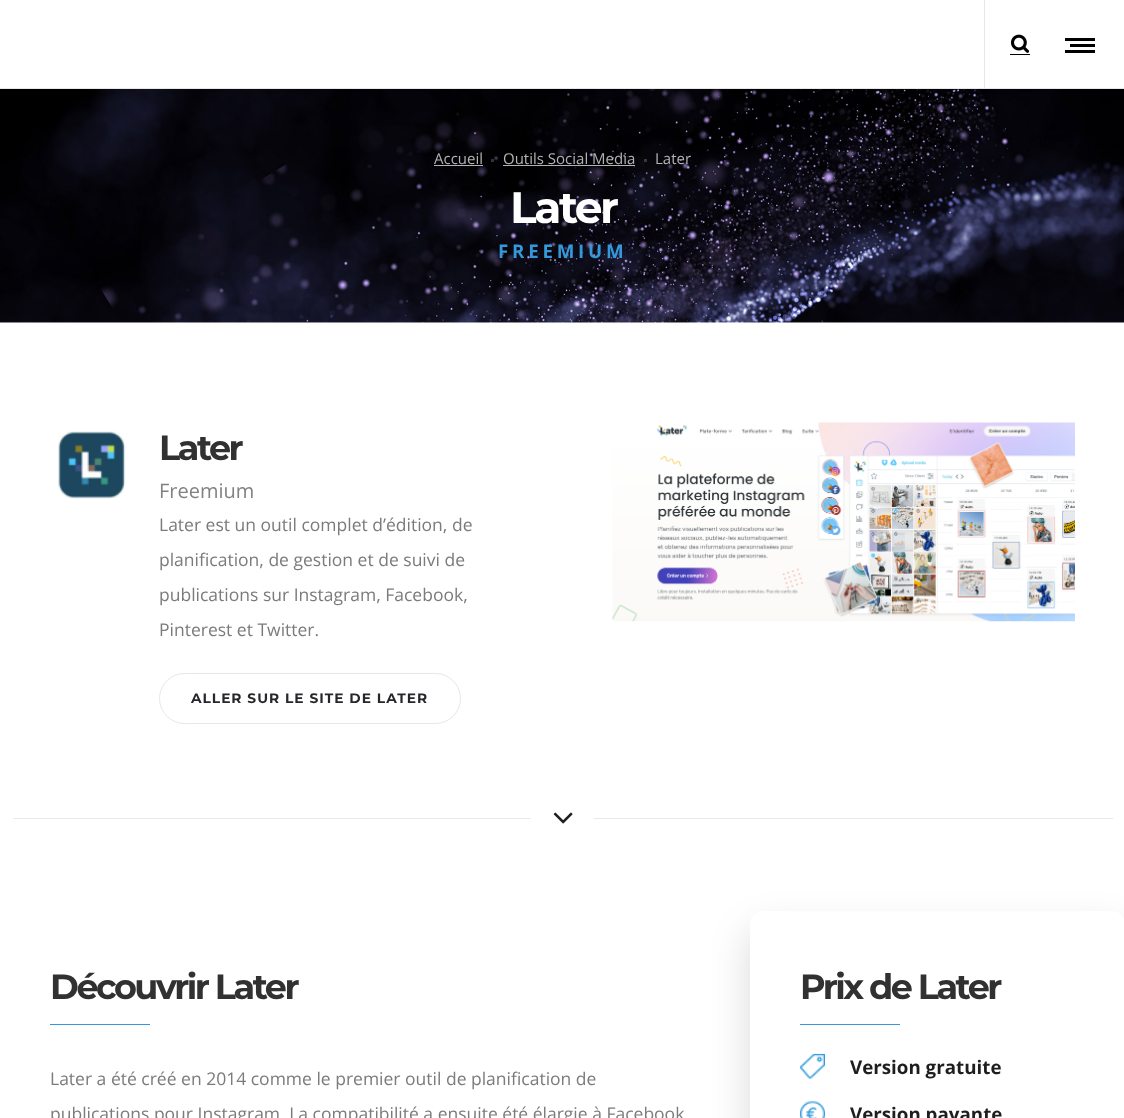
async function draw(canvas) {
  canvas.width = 1124;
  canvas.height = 1118;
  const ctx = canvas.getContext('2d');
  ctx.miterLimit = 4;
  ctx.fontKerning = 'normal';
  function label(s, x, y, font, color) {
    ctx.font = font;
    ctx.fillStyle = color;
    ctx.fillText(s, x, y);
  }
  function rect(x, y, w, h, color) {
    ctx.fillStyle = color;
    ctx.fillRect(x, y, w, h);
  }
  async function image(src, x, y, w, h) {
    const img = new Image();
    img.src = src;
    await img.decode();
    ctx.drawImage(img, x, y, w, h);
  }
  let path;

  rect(0, 0, 1124, 1118, '#fff');
  rect(0, 88, 1124, 1, '#e7e7e7');
  rect(984, 0, 1, 88, '#e7e7e7');
  await image('assets/img1.png', 1011, 34, 18, 19);
  rect(1010, 54, 20, 1, '#000');
  rect(1065, 38, 30, 3, '#000');
  rect(1070, 44, 25, 3, '#000');
  rect(1065, 50, 30, 3, '#000');
  await image('assets/img2.png', 0, 89, 1124, 234);
  rect(248, 321, 587, 1, '#1b1b1b1a');
  label('Accueil', 434, 164, '15px Open Sans', '#b3b3b4');
  rect(434, 165, 49, 1, '#ffffffb3');
  rect(491, 159, 3, 3, '#ffffff33');
  label('Outils Social Media', 503, 164, '15px Open Sans', '#b3b3b4');
  rect(503, 165, 132, 1, '#ffffffb3');
  rect(644, 159, 3, 3, '#39383d');
  label('Later', 655, 164, '15px Open Sans', '#b3b3b4');
  ctx.letterSpacing = '-2.5px';
  label('Later', 510, 223, 'bold 44px Montserrat', '#fff');
  ctx.letterSpacing = '3.75px';
  label('FREEMIUM', 498, 258, 'bold 18.75px Open Sans', '#3498db');
  await image('assets/img3.png', 58, 431, 68, 68);
  ctx.letterSpacing = '-2.5px';
  label('Later', 159, 460, 'bold 35px Montserrat', '#313131');
  ctx.letterSpacing = '0px';
  label('Freemium', 159, 498, '20px Open Sans', '#828282');
  label('Later est un outil complet d’édition, de', 159, 531, '17.5px Open Sans', '#7b7b7b');
  label('planification, de gestion et de suivi de', 159, 566, '17.5px Open Sans', '#7b7b7b');
  label('publications sur Instagram, Facebook,', 159, 601, '17.5px Open Sans', '#7b7b7b');
  label('Pinterest et Twitter.', 159, 636, '17.5px Open Sans', '#7b7b7b');
  ctx.beginPath();
  ctx.roundRect(159.5, 673.5, 301, 50, 25);
  ctx.strokeStyle = '#e7e7e7';
  ctx.stroke();
  ctx.letterSpacing = '1px';
  label('ALLER SUR LE SITE DE LATER', 191, 703, 'bold 13.75px Montserrat', '#28262b');
  await image('assets/img4.png', 612, 422, 463, 200);
  rect(13, 818, 518, 1, '#e9e9e9');
  await image('assets/img5.png', 553, 812, 20, 12);
  rect(594, 818, 519, 1, '#e9e9e9');
  ctx.letterSpacing = '-2.5px';
  label('Découvrir Later', 50, 999, 'bold 35px Montserrat', '#313131');
  rect(50, 1024, 100, 1, '#3498db');
  ctx.letterSpacing = '0px';
  label('Later a été créé en 2014 comme le premier outil de planification de', 50, 1085, '17.5px Open Sans', '#7b7b7b');
  label('publications pour Instagram. La compatibilité a ensuite été élargie à Facebook', 50, 1120, '17.5px Open Sans', '#7b7b7b');
  ctx.save();
  path = new Path2D('M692 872H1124V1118H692ZM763 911H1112C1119 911 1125 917 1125 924V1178C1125 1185 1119 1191 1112 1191H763C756 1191 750 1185 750 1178V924C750 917 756 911 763 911Z');
  ctx.clip(path, 'evenodd');
  ctx.fillStyle = '#00000026';
  ctx.filter = 'blur(19px)';
  ctx.beginPath();
  ctx.roundRect(750, 930, 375, 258, 13);
  ctx.fill();
  ctx.filter = 'none';
  ctx.restore();
  ctx.letterSpacing = '-2.5px';
  label('Prix de Later', 800, 999, 'bold 35px Montserrat', '#313131');
  rect(800, 1024, 100, 1, '#3498db');
  await image('assets/img6.png', 800, 1053, 25, 26);
  ctx.letterSpacing = '0px';
  label('Version gratuite', 850, 1074, 'bold 18.75px Open Sans', '#1e1e1e');
  await image('assets/img7.png', 800, 1101, 25, 17);
  label('Version payante', 850, 1121, 'bold 18.75px Open Sans', '#1e1e1e');
}

draw(document.querySelector('canvas'));
